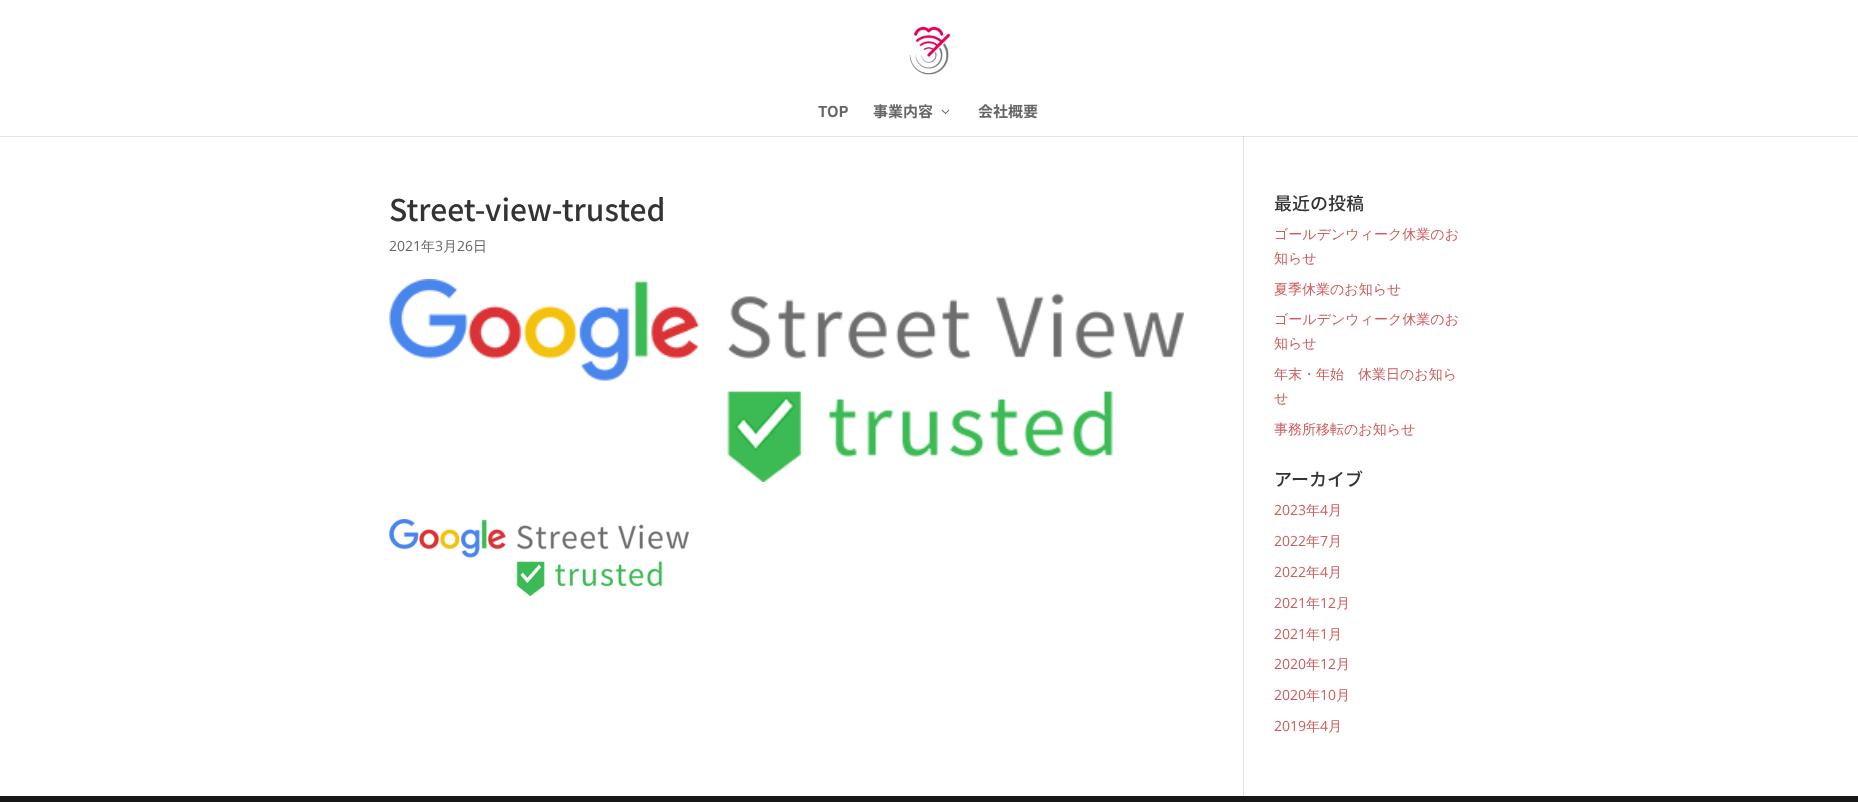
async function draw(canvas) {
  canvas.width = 1858;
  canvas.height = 802;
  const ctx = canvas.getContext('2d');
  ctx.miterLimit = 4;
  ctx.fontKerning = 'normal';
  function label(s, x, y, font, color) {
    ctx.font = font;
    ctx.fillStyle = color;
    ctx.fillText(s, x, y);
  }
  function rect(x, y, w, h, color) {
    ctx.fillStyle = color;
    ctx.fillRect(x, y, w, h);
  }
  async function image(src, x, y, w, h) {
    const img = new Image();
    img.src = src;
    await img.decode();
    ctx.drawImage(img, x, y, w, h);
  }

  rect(0, 0, 1858, 802, '#fff');
  rect(0, 136, 1858, 1, '#e6e6e6');
  await image('assets/img1.png', 909, 26, 42, 49);
  label('TOP', 818, 117, 'bold 15px Noto Sans JP', '#666');
  label('事業内容', 873, 117, 'bold 15px Noto Sans JP', '#666');
  await image('assets/img2.png', 941, 109, 9, 5);
  label('会社概要', 978, 117, 'bold 15px Noto Sans JP', '#666');
  rect(1243, 136, 1, 660, '#e2e2e2');
  rect(1243, 136, 1, 1, '#cbcbcb');
  label('Street-view-trusted', 389, 221, '500 30px Noto Sans JP', '#333');
  label('2021', 389, 251, '14px Open Sans', '#666');
  label('年', 421, 251, '500 14px WenQuanYi Zen Hei', '#666');
  label('3', 435, 251, '14px Open Sans', '#666');
  label('月', 443, 251, '500 14px WenQuanYi Zen Hei', '#666');
  label('26', 457, 251, '14px Open Sans', '#666');
  label('日', 473, 251, '500 14px WenQuanYi Zen Hei', '#666');
  await image('assets/img3.png', 389, 279, 795, 203);
  await image('assets/img4.png', 389, 519, 300, 77);
  label('最近の投稿', 1274, 210, '500 18px Noto Sans JP', '#333');
  label('ゴールデンウィーク休業のお', 1274, 239, '500 14px WenQuanYi Zen Hei', '#cd5c5c');
  label('知らせ', 1274, 263, '500 14px WenQuanYi Zen Hei', '#cd5c5c');
  label('夏季休業のお知らせ', 1274, 294, '500 14px WenQuanYi Zen Hei', '#cd5c5c');
  label('ゴールデンウィーク休業のお', 1274, 324, '500 14px WenQuanYi Zen Hei', '#cd5c5c');
  label('知らせ', 1274, 348, '500 14px WenQuanYi Zen Hei', '#cd5c5c');
  label('年末・年始　休業日のお知ら', 1274, 379, '500 14px WenQuanYi Zen Hei', '#cd5c5c');
  label('せ', 1274, 403, '500 14px WenQuanYi Zen Hei', '#cd5c5c');
  label('事務所移転のお知らせ', 1274, 434, '500 14px WenQuanYi Zen Hei', '#cd5c5c');
  label('アーカイブ', 1274, 486, '500 18px Noto Sans JP', '#333');
  label('2023', 1274, 515, '14px Open Sans', '#cd5c5c');
  label('年', 1306, 515, '500 14px WenQuanYi Zen Hei', '#cd5c5c');
  label('4', 1320, 515, '14px Open Sans', '#cd5c5c');
  label('月', 1328, 515, '500 14px WenQuanYi Zen Hei', '#cd5c5c');
  label('2022', 1274, 546, '14px Open Sans', '#cd5c5c');
  label('年', 1306, 546, '500 14px WenQuanYi Zen Hei', '#cd5c5c');
  label('7', 1320, 546, '14px Open Sans', '#cd5c5c');
  label('月', 1328, 546, '500 14px WenQuanYi Zen Hei', '#cd5c5c');
  label('2022', 1274, 577, '14px Open Sans', '#cd5c5c');
  label('年', 1306, 577, '500 14px WenQuanYi Zen Hei', '#cd5c5c');
  label('4', 1320, 577, '14px Open Sans', '#cd5c5c');
  label('月', 1328, 577, '500 14px WenQuanYi Zen Hei', '#cd5c5c');
  label('2021', 1274, 608, '14px Open Sans', '#cd5c5c');
  label('年', 1306, 608, '500 14px WenQuanYi Zen Hei', '#cd5c5c');
  label('12', 1320, 608, '14px Open Sans', '#cd5c5c');
  label('月', 1336, 608, '500 14px WenQuanYi Zen Hei', '#cd5c5c');
  label('2021', 1274, 639, '14px Open Sans', '#cd5c5c');
  label('年', 1306, 639, '500 14px WenQuanYi Zen Hei', '#cd5c5c');
  label('1', 1320, 639, '14px Open Sans', '#cd5c5c');
  label('月', 1328, 639, '500 14px WenQuanYi Zen Hei', '#cd5c5c');
  label('2020', 1274, 669, '14px Open Sans', '#cd5c5c');
  label('年', 1306, 669, '500 14px WenQuanYi Zen Hei', '#cd5c5c');
  label('12', 1320, 669, '14px Open Sans', '#cd5c5c');
  label('月', 1336, 669, '500 14px WenQuanYi Zen Hei', '#cd5c5c');
  label('2020', 1274, 700, '14px Open Sans', '#cd5c5c');
  label('年', 1306, 700, '500 14px WenQuanYi Zen Hei', '#cd5c5c');
  label('10', 1320, 700, '14px Open Sans', '#cd5c5c');
  label('月', 1336, 700, '500 14px WenQuanYi Zen Hei', '#cd5c5c');
  label('2019', 1274, 731, '14px Open Sans', '#cd5c5c');
  label('年', 1306, 731, '500 14px WenQuanYi Zen Hei', '#cd5c5c');
  label('4', 1320, 731, '14px Open Sans', '#cd5c5c');
  label('月', 1328, 731, '500 14px WenQuanYi Zen Hei', '#cd5c5c');
  rect(0, 796, 1858, 6, '#171717');
}

draw(document.querySelector('canvas'));
